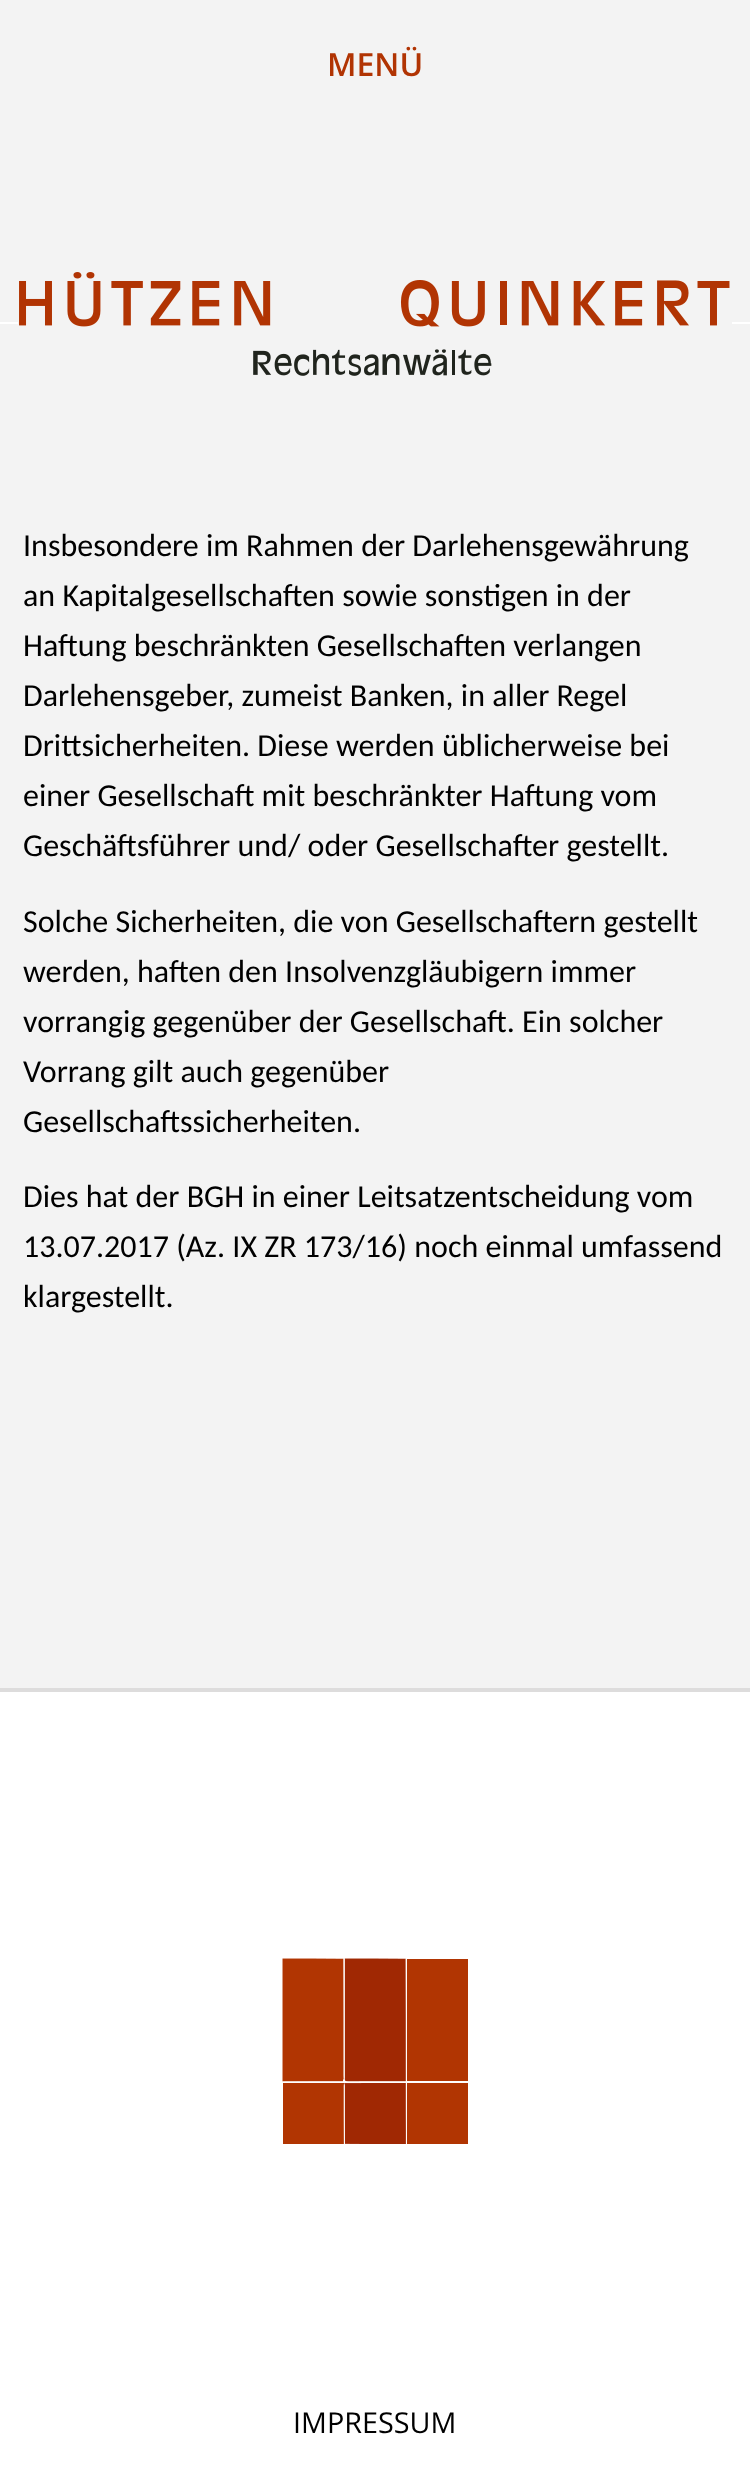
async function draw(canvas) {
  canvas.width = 750;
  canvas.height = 2470;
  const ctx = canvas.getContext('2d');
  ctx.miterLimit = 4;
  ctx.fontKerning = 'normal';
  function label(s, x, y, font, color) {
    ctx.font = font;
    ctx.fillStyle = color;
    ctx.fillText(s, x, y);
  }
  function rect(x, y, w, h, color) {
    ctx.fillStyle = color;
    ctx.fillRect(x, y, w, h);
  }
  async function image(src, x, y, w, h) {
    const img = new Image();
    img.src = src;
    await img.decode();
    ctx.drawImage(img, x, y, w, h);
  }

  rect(0, 0, 750, 2470, '#f3f3f3');
  label('MENÜ', 327, 76, '600 32px Open Sans', '#b13403');
  rect(0, 322, 750, 2, '#fff');
  rect(18, 322, 714, 2, '#f3f3f3');
  await image('assets/img1.png', 19, 272, 711, 104);
  label('Insbesondere im Rahmen der Darlehensgewährung', 23, 556, '32px Carlito', '#000');
  label('an Kapitalgesellschaften sowie sonstigen in der', 23, 606, '32px Carlito', '#000');
  label('Haftung beschränkten Gesellschaften verlangen', 23, 656, '32px Carlito', '#000');
  label('Darlehensgeber, zumeist Banken, in aller Regel', 23, 706, '32px Carlito', '#000');
  label('Drittsicherheiten. Diese werden üblicherweise bei', 23, 756, '32px Carlito', '#000');
  label('einer Gesellschaft mit beschränkter Haftung vom', 23, 806, '32px Carlito', '#000');
  label('Geschäftsführer und/ oder Gesellschafter gestellt.', 23, 856, '32px Carlito', '#000');
  label('Solche Sicherheiten, die von Gesellschaftern gestellt', 23, 932, '32px Carlito', '#000');
  label('werden, haften den Insolvenzgläubigern immer', 23, 982, '32px Carlito', '#000');
  label('vorrangig gegenüber der Gesellschaft. Ein solcher', 23, 1032, '32px Carlito', '#000');
  label('Vorrang gilt auch gegenüber', 23, 1082, '32px Carlito', '#000');
  label('Gesellschaftssicherheiten.', 23, 1132, '32px Carlito', '#000');
  label('Dies hat der BGH in einer Leitsatzentscheidung vom', 23, 1207, '32px Carlito', '#000');
  label('13.07.2017 (Az. IX ZR 173/16) noch einmal umfassend', 23, 1257, '32px Carlito', '#000');
  label('klargestellt.', 23, 1307, '32px Carlito', '#000');
  rect(0, 1692, 750, 778, '#fff');
  rect(0, 1688, 750, 4, '#dddcdc');
  await image('assets/img2.png', 282, 1958, 186, 186);
  label('IMPRESSUM', 293, 2433, '28.75px Open Sans', '#000');
}

draw(document.querySelector('canvas'));
